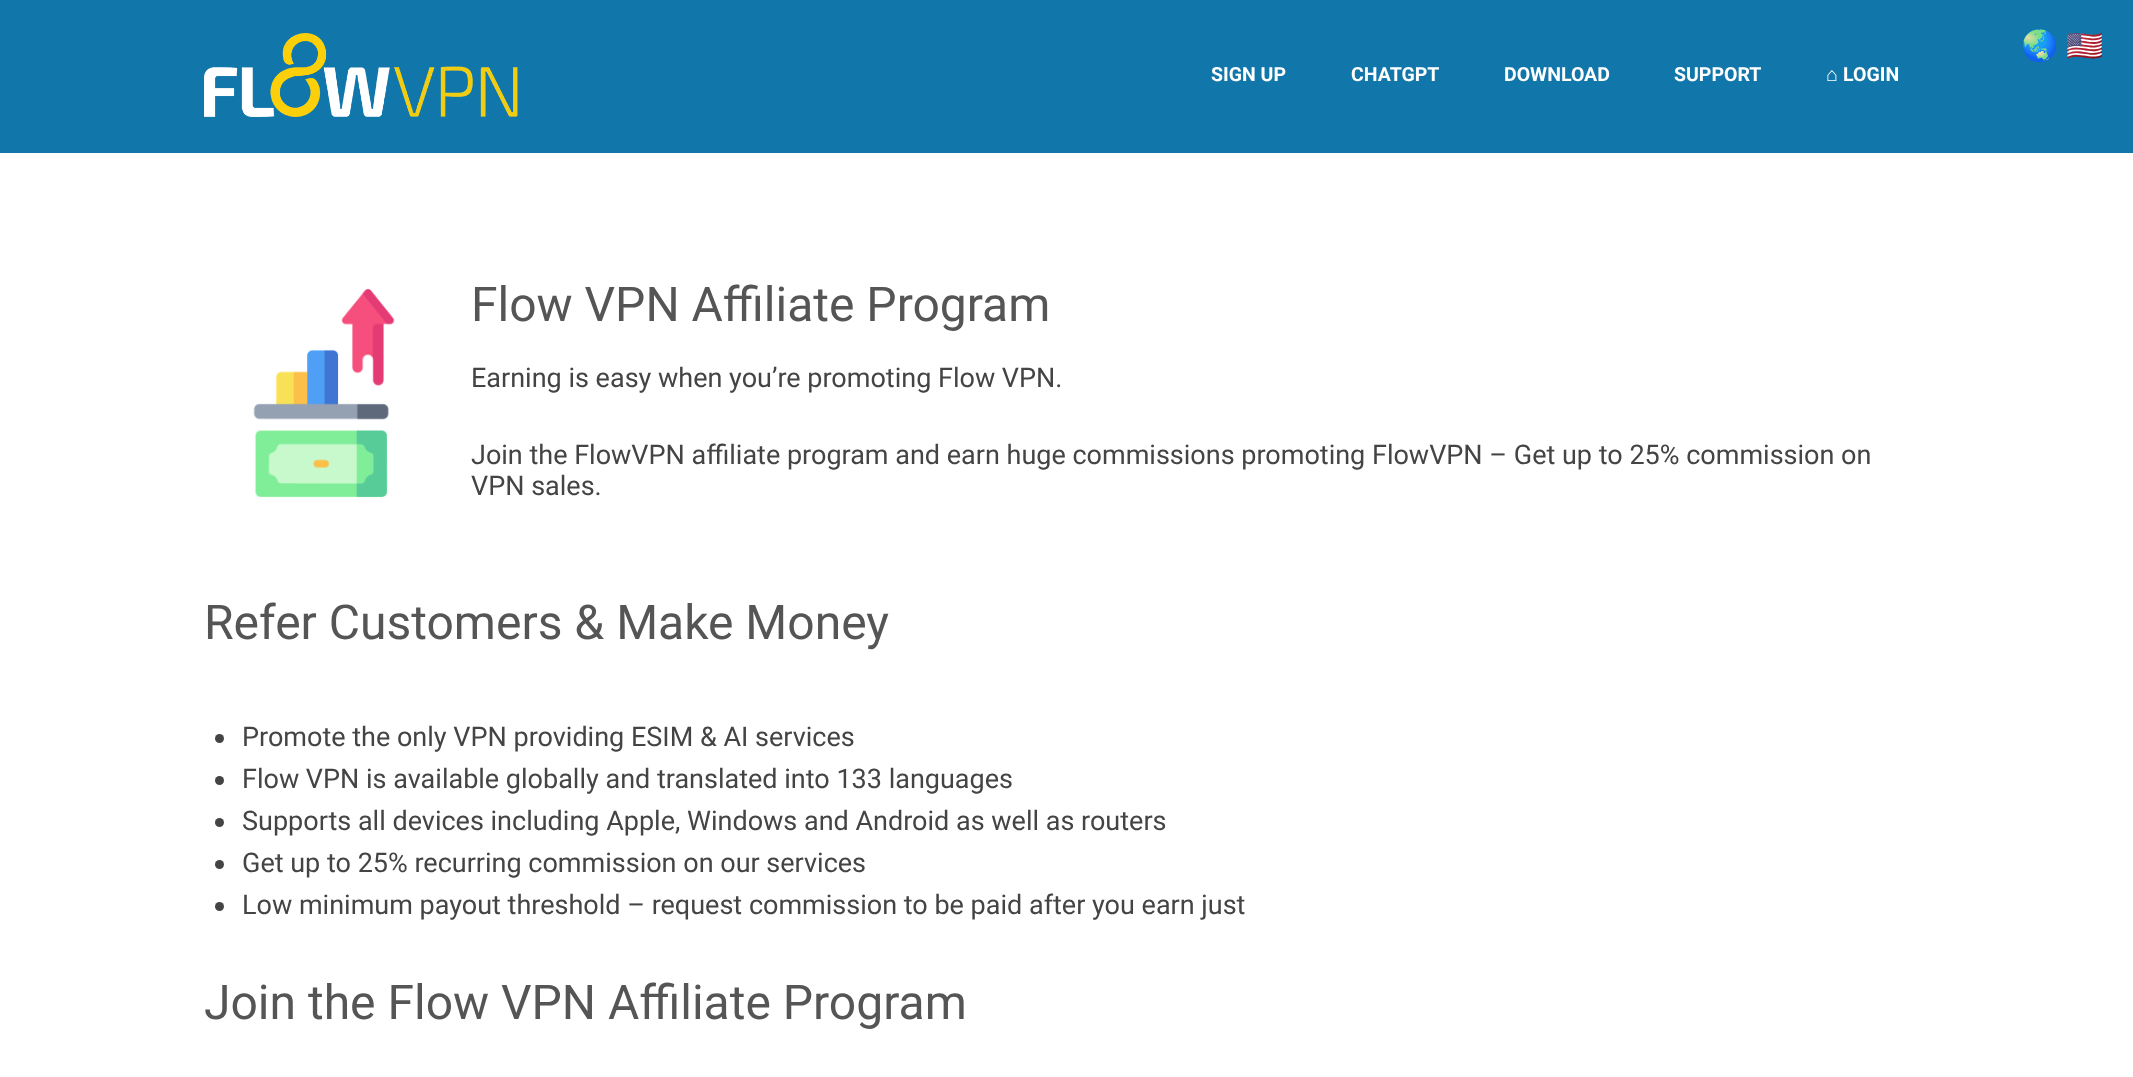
async function draw(canvas) {
  canvas.width = 2133;
  canvas.height = 1077;
  const ctx = canvas.getContext('2d');
  ctx.miterLimit = 4;
  ctx.fontKerning = 'normal';
  function label(s, x, y, font, color) {
    ctx.font = font;
    ctx.fillStyle = color;
    ctx.fillText(s, x, y);
  }
  function rect(x, y, w, h, color) {
    ctx.fillStyle = color;
    ctx.fillRect(x, y, w, h);
  }
  async function image(src, x, y, w, h) {
    const img = new Image();
    img.src = src;
    await img.decode();
    ctx.drawImage(img, x, y, w, h);
  }

  rect(0, 0, 2133, 1077, '#fff');
  rect(0, 0, 2133, 153, '#17a');
  label('🌏', 2021, 56, '30px Noto Color Emoji', '#70858f');
  label('🇺🇸', 2066, 56, '30px Noto Color Emoji', '#70858f');
  await image('assets/img1.png', 204, 33, 314, 84);
  label('SIGN UP', 1211, 81, 'bold 19.5px Roboto', '#fff');
  label('CHATGPT', 1351, 81, 'bold 19.5px Roboto', '#fff');
  label('DOWNLOAD', 1504, 81, 'bold 19.5px Roboto', '#fff');
  label('SUPPORT', 1674, 81, 'bold 19.5px Roboto', '#fff');
  label('⌂', 1826, 81, 'bold 19.5px Liberation Sans', '#fff');
  label('LOGIN', 1843, 81, 'bold 19.5px Roboto', '#fff');
  await image('assets/img2.png', 253, 289, 142, 209);
  label('Flow VPN Affiliate Program', 471, 321, '48px Roboto', '#555');
  label('Earning is easy when you’re promoting Flow VPN.', 471, 387, '27px Roboto', '#444');
  label('Join the FlowVPN affiliate program and earn huge commissions promoting FlowVPN – Get up to 25% commission on', 471, 464, '27px Roboto', '#444');
  label('VPN sales.', 471, 495, '27px Roboto', '#444');
  label('Refer Customers & Make Money', 204, 639, '48px Roboto', '#555');
  ctx.fillStyle = '#444';
  ctx.beginPath();
  ctx.arc(219.5, 738.5, 4.5, 0, 2 * Math.PI);
  ctx.fill();
  label('Promote the only VPN providing ESIM & AI services', 242, 746, '27px Roboto', '#444');
  ctx.beginPath();
  ctx.arc(219.5, 780.5, 4.5, 0, 2 * Math.PI);
  ctx.fill();
  label('Flow VPN is available globally and translated into 133 languages', 242, 788, '27px Roboto', '#444');
  ctx.beginPath();
  ctx.arc(219.5, 822.5, 4.5, 0, 2 * Math.PI);
  ctx.fill();
  label('Supports all devices including Apple, Windows and Android as well as routers', 242, 830, '27px Roboto', '#444');
  ctx.beginPath();
  ctx.arc(219.5, 864.5, 4.5, 0, 2 * Math.PI);
  ctx.fill();
  label('Get up to 25% recurring commission on our services', 242, 872, '27px Roboto', '#444');
  ctx.beginPath();
  ctx.arc(219.5, 906.5, 4.5, 0, 2 * Math.PI);
  ctx.fill();
  label('Low minimum payout threshold – request commission to be paid after you earn just', 242, 914, '27px Roboto', '#444');
  label('Join the Flow VPN Affiliate Program', 204, 1019, '48px Roboto', '#555');
}

draw(document.querySelector('canvas'));
